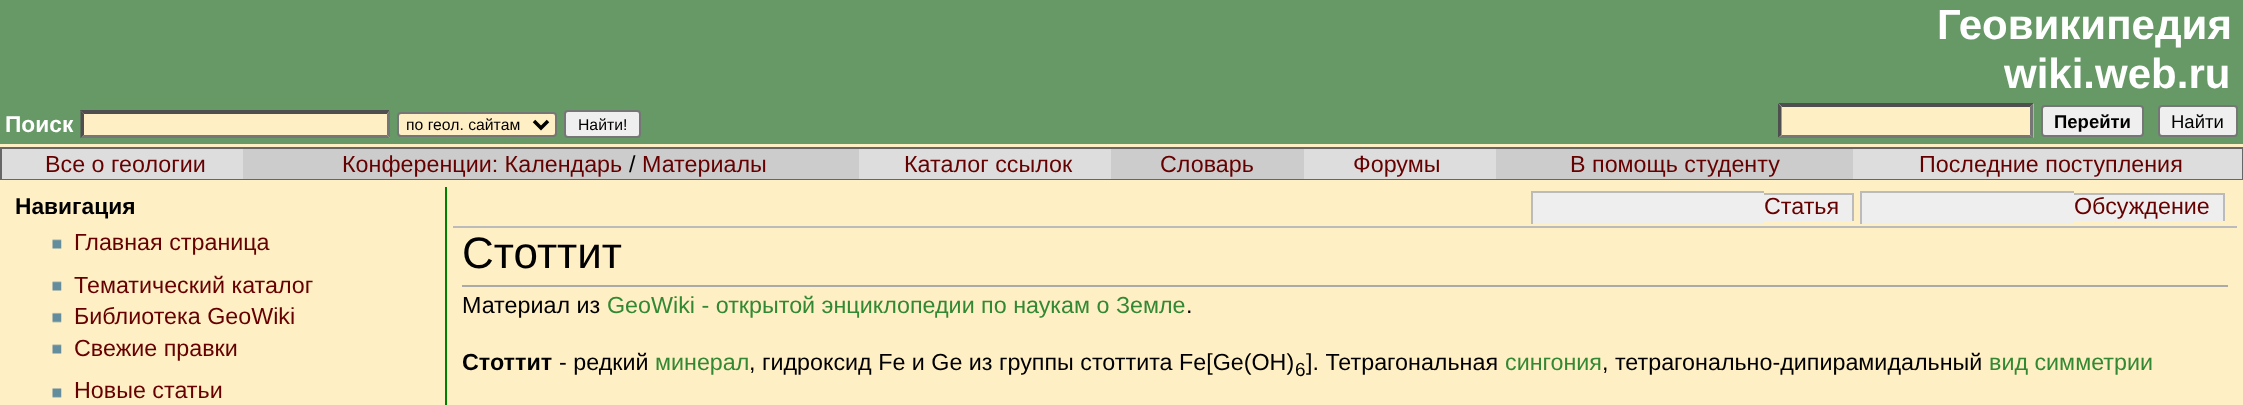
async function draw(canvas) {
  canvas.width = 2243;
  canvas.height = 405;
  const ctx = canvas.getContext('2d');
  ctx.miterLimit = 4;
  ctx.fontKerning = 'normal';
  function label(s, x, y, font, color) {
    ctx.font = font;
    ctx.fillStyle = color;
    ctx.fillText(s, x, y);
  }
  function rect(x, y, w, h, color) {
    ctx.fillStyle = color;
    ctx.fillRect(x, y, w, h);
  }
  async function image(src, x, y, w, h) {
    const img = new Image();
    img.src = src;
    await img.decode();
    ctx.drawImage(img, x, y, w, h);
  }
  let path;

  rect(0, 0, 2243, 405, '#ffefc4');
  rect(0, 0, 2243, 144, '#696');
  label('Геовикипедия', 1937, 39, 'bold 42px Liberation Sans', '#fff');
  label('wiki.web.ru', 2004, 88, 'bold 42px Liberation Sans', '#fff');
  label('Поиск', 5, 132, 'bold 22.75px Liberation Sans', '#fff');
  rect(81, 110, 309, 28, '#ffefc4');
  ctx.fillStyle = '#4f4f4f';
  path = new Path2D('M80 110H390L387 114H84Z');
  ctx.fill(path);
  ctx.fillStyle = '#767676';
  path = new Path2D('M390 110V138L387 135V114Z');
  ctx.fill(path);
  path = new Path2D('M390 138H80L84 135H387Z');
  ctx.fill(path);
  ctx.fillStyle = '#4f4f4f';
  path = new Path2D('M80.5 138V110L84 114V135Z');
  ctx.fill(path);
  ctx.fillStyle = '#ffefc4';
  ctx.beginPath();
  ctx.roundRect(398, 113, 158, 23, 3);
  ctx.fill();
  ctx.strokeStyle = '#767676';
  ctx.lineWidth = 2;
  ctx.stroke();
  path = new Path2D('M534 121L541 128L548 121');
  ctx.strokeStyle = '#000';
  ctx.lineWidth = 3.5;
  ctx.stroke(path);
  label('по геол. сайтам', 406, 130, '15.75px Liberation Sans', '#000');
  ctx.fillStyle = '#efefef';
  ctx.beginPath();
  ctx.roundRect(565, 111, 75, 26, 3);
  ctx.fill();
  ctx.strokeStyle = '#767676';
  ctx.lineWidth = 2;
  ctx.stroke();
  label('Найти!', 578, 130, '15.75px Liberation Sans', '#000');
  rect(1778, 103, 256, 35, '#ffefc4');
  ctx.fillStyle = '#4f4f4f';
  path = new Path2D('M1778 103H2034L2030 107H1782Z');
  ctx.fill(path);
  ctx.fillStyle = '#767676';
  path = new Path2D('M2033.5 103V138L2030 135V107Z');
  ctx.fill(path);
  path = new Path2D('M2034 138H1778L1782 135H2030Z');
  ctx.fill(path);
  ctx.fillStyle = '#4f4f4f';
  path = new Path2D('M1778 138V103L1781.5 107V135Z');
  ctx.fill(path);
  ctx.fillStyle = '#efefef';
  ctx.beginPath();
  ctx.roundRect(2042, 106, 101, 30, 3);
  ctx.fill();
  ctx.stroke();
  label('Перейти', 2054, 128, 'bold 18.5px Liberation Sans', '#000');
  ctx.fillStyle = '#efefef';
  ctx.beginPath();
  ctx.roundRect(2159, 106, 78, 30, 3);
  ctx.fill();
  ctx.stroke();
  label('Найти', 2171, 128, '18.5px Liberation Sans', '#000');
  rect(0, 147, 2243, 33, '#666');
  rect(243, 149, 1610, 30, '#ccc');
  rect(2, 149, 241, 30, '#ddd');
  label('Все о геологии', 45, 172, '23.3px Liberation Sans', '#600');
  label('Конференции: Календарь', 342, 172, '23.3px Liberation Sans', '#600');
  label('/', 629, 172, '23.3px Liberation Sans', '#000');
  label('Материалы', 642, 172, '23.3px Liberation Sans', '#600');
  rect(859, 149, 252, 30, '#ddd');
  label('Каталог ссылок', 904, 172, '23.3px Liberation Sans', '#600');
  label('Словарь', 1160, 172, '23.3px Liberation Sans', '#600');
  rect(1304, 149, 192, 30, '#ddd');
  label('Форумы', 1353, 172, '23.3px Liberation Sans', '#600');
  label('В помощь студенту', 1570, 172, '23.3px Liberation Sans', '#600');
  rect(1853, 149, 389, 30, '#ddd');
  label('Последние поступления', 1919, 172, '23.3px Liberation Sans', '#600');
  label('Навигация', 15, 214, 'bold 22.75px Liberation Sans', '#000');
  await image('assets/img1.png', 52, 239, 10, 10);
  label('Главная страница', 74, 250, '23.3px Liberation Sans', '#600');
  await image('assets/img1.png', 52, 281, 10, 10);
  label('Тематический каталог', 74, 293, '23.3px Liberation Sans', '#600');
  await image('assets/img2.png', 52, 312, 10, 11);
  label('Библиотека GeoWiki', 74, 324, '23.3px Liberation Sans', '#600');
  await image('assets/img1.png', 52, 344, 10, 10);
  label('Свежие правки', 74, 356, '23.3px Liberation Sans', '#600');
  await image('assets/img3.png', 52, 388, 10, 10);
  label('Новые статьи', 74, 398, '23.3px Liberation Sans', '#600');
  rect(445, 187, 2, 218, '#008000');
  rect(453, 226, 1784, 2, '#bbb');
  rect(1764, 195, 88, 26, '#eee');
  label('Статья', 1764, 214, '23.3px Liberation Sans', '#600');
  rect(1533, 193, 231, 31, '#eee');
  rect(1531, 191, 233, 2, '#bbb');
  rect(1531, 191, 2, 33, '#bbb');
  rect(1764, 193, 89, 2, '#bbb');
  rect(1852, 193, 2, 28, '#bbb');
  rect(2074, 195, 149, 26, '#eee');
  label('Обсуждение', 2074, 214, '23.3px Liberation Sans', '#600');
  rect(1862, 193, 212, 31, '#eee');
  rect(1860, 191, 214, 2, '#bbb');
  rect(1860, 191, 2, 33, '#bbb');
  rect(2074, 193, 150, 2, '#bbb');
  rect(2223, 193, 2, 28, '#bbb');
  rect(462, 285, 1766, 2, '#aaa');
  label('Стоттит', 462, 268, '44px Liberation Sans', '#000');
  label('Материал из', 462, 313, '23.3px Liberation Sans', '#000');
  label('GeoWiki - открытой энциклопедии по наукам о Земле', 607, 313, '23.3px Liberation Sans', '#383');
  label('.', 1186, 313, '23.3px Liberation Sans', '#000');
  label('Стоттит', 462, 370, 'bold 23.3px Liberation Sans', '#000');
  label('- редкий', 559, 370, '23.3px Liberation Sans', '#000');
  label('минерал', 655, 370, '23.3px Liberation Sans', '#383');
  label(', гидроксид Fe и Ge из группы стоттита Fe[Ge(OH)', 749, 370, '23.3px Liberation Sans', '#000');
  label('6', 1295, 376, '19px Liberation Sans', '#000');
  label(']. Тетрагональная', 1306, 370, '23.3px Liberation Sans', '#000');
  label('сингония', 1505, 370, '23.3px Liberation Sans', '#383');
  label(', тетрагонально-дипирамидальный', 1602, 370, '23.3px Liberation Sans', '#000');
  label('вид симметрии', 1989, 370, '23.3px Liberation Sans', '#383');
}

draw(document.querySelector('canvas'));
